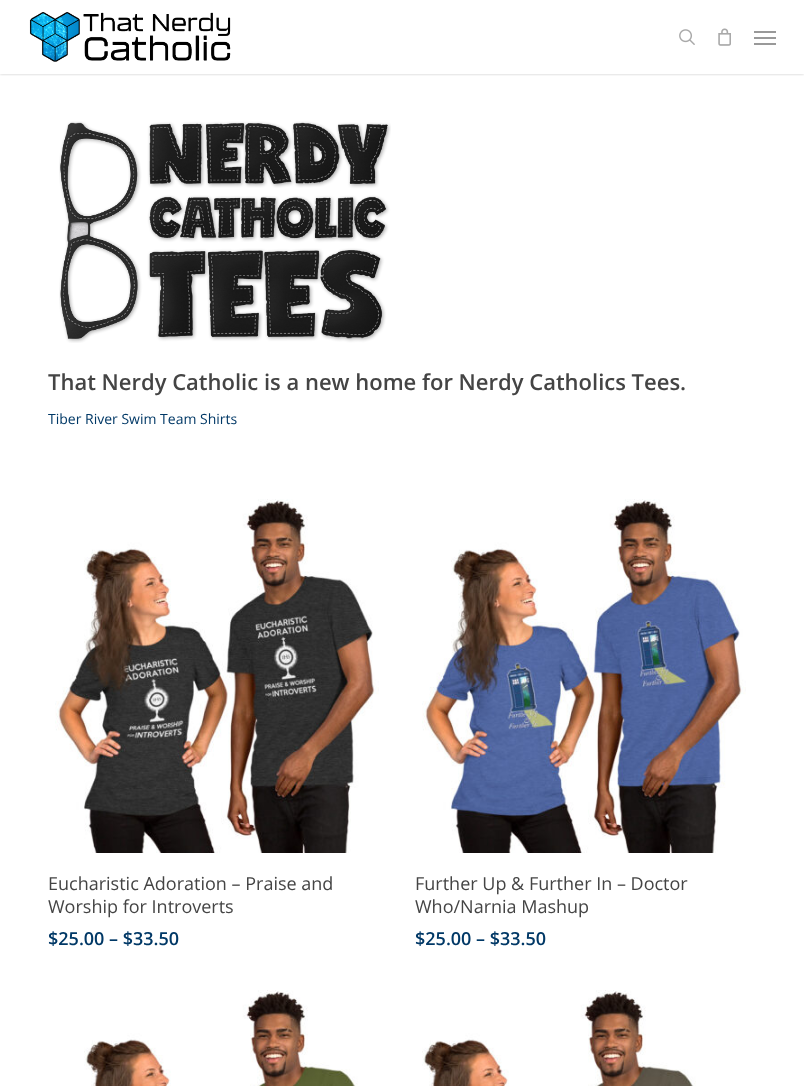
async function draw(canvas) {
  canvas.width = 804;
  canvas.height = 1086;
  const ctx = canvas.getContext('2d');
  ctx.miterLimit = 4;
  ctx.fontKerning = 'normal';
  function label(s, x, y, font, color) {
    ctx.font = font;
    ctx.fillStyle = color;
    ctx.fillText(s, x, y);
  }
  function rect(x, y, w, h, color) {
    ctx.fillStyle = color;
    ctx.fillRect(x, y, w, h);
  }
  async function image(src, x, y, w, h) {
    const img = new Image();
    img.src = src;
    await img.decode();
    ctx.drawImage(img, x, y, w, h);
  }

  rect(0, 0, 804, 1086, '#fff');
  ctx.save();
  ctx.beginPath();
  ctx.rect(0, 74, 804, 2);
  ctx.clip();
  ctx.fillStyle = '#00000038';
  ctx.filter = 'blur(1.5px)';
  ctx.beginPath();
  ctx.rect(0, 0, 804, 74);
  ctx.fill();
  ctx.filter = 'none';
  ctx.restore();
  await image('assets/img1.png', 29, 12, 202, 50);
  await image('assets/img2.png', 679, 29, 16, 16);
  await image('assets/img3.png', 718, 28, 13, 18);
  rect(754, 31, 22, 2, '#999');
  rect(754, 43, 22, 2, '#999');
  rect(754, 37, 22, 2, '#999');
  await image('assets/img4.png', 59, 121, 332, 222);
  label('That Nerdy Catholic is a new home for Nerdy Catholics Tees.', 48, 390, '600 22px Open Sans', '#444');
  label('Tiber River Swim Team Shirts', 48, 424, '14px Open Sans', '#003866');
  await image('assets/img5.png', 55, 499, 324, 354);
  label('Eucharistic Adoration – Praise and', 48, 890, '18px Open Sans', '#444');
  label('Worship for Introverts', 48, 913, '18px Open Sans', '#444');
  label('$25.00 – $33.50', 48, 945, '600 18px Open Sans', '#003866');
  await image('assets/img6.png', 422, 499, 324, 354);
  label('Further Up & Further In – Doctor', 415, 890, '18px Open Sans', '#444');
  label('Who/Narnia Mashup', 415, 913, '18px Open Sans', '#444');
  label('$25.00 – $33.50', 415, 945, '600 18px Open Sans', '#003866');
  await image('assets/img7.png', 84, 990, 274, 96);
  await image('assets/img8.png', 422, 990, 274, 96);
}

draw(document.querySelector('canvas'));
